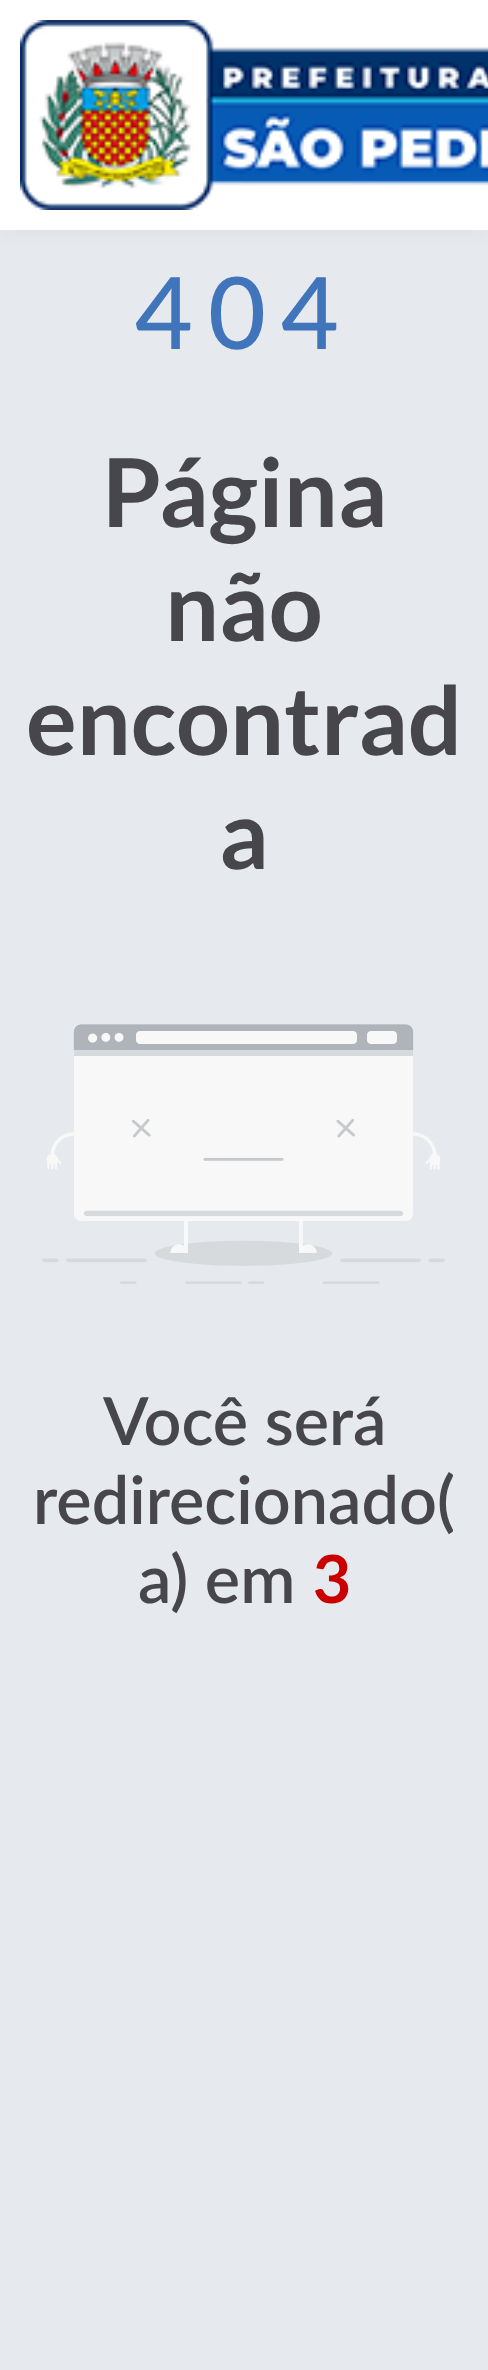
async function draw(canvas) {
  canvas.width = 488;
  canvas.height = 2370;
  const ctx = canvas.getContext('2d');
  ctx.miterLimit = 4;
  ctx.fontKerning = 'normal';
  function label(s, x, y, font, color) {
    ctx.font = font;
    ctx.fillStyle = color;
    ctx.fillText(s, x, y);
  }
  function rect(x, y, w, h, color) {
    ctx.fillStyle = color;
    ctx.fillRect(x, y, w, h);
  }
  async function image(src, x, y, w, h) {
    const img = new Image();
    img.src = src;
    await img.decode();
    ctx.drawImage(img, x, y, w, h);
  }

  rect(0, 0, 488, 2370, '#e6e9ed');
  ctx.fillStyle = '#0000000d';
  ctx.filter = 'blur(10px)';
  ctx.beginPath();
  ctx.rect(0, 0, 488, 230);
  ctx.fill();
  ctx.filter = 'none';
  rect(0, 0, 488, 230, '#fff');
  await image('assets/img1.png', 20, 20, 468, 190);
  ctx.letterSpacing = '15px';
  label('404', 135, 349, '500 100px Lato', '#4175bb');
  ctx.letterSpacing = '0px';
  label('Página', 102, 527, 'bold 95px Lato', '#47474b');
  label('não', 165, 641, 'bold 95px Lato', '#47474b');
  label('encontrad', 26, 755, 'bold 95px Lato', '#47474b');
  label('a', 219, 869, 'bold 95px Lato', '#47474b');
  await image('assets/img2.png', 42, 1024, 403, 260);
  label('Você será', 103, 1445, '600 66.5px Lato', '#47474b');
  label('redirecionado(', 33, 1524, '600 66.5px Lato', '#47474b');
  label('a) em', 138, 1603, '600 66.5px Lato', '#47474b');
  label('3', 312, 1603, 'bold 66.5px Lato', '#ca0000');
}

draw(document.querySelector('canvas'));
